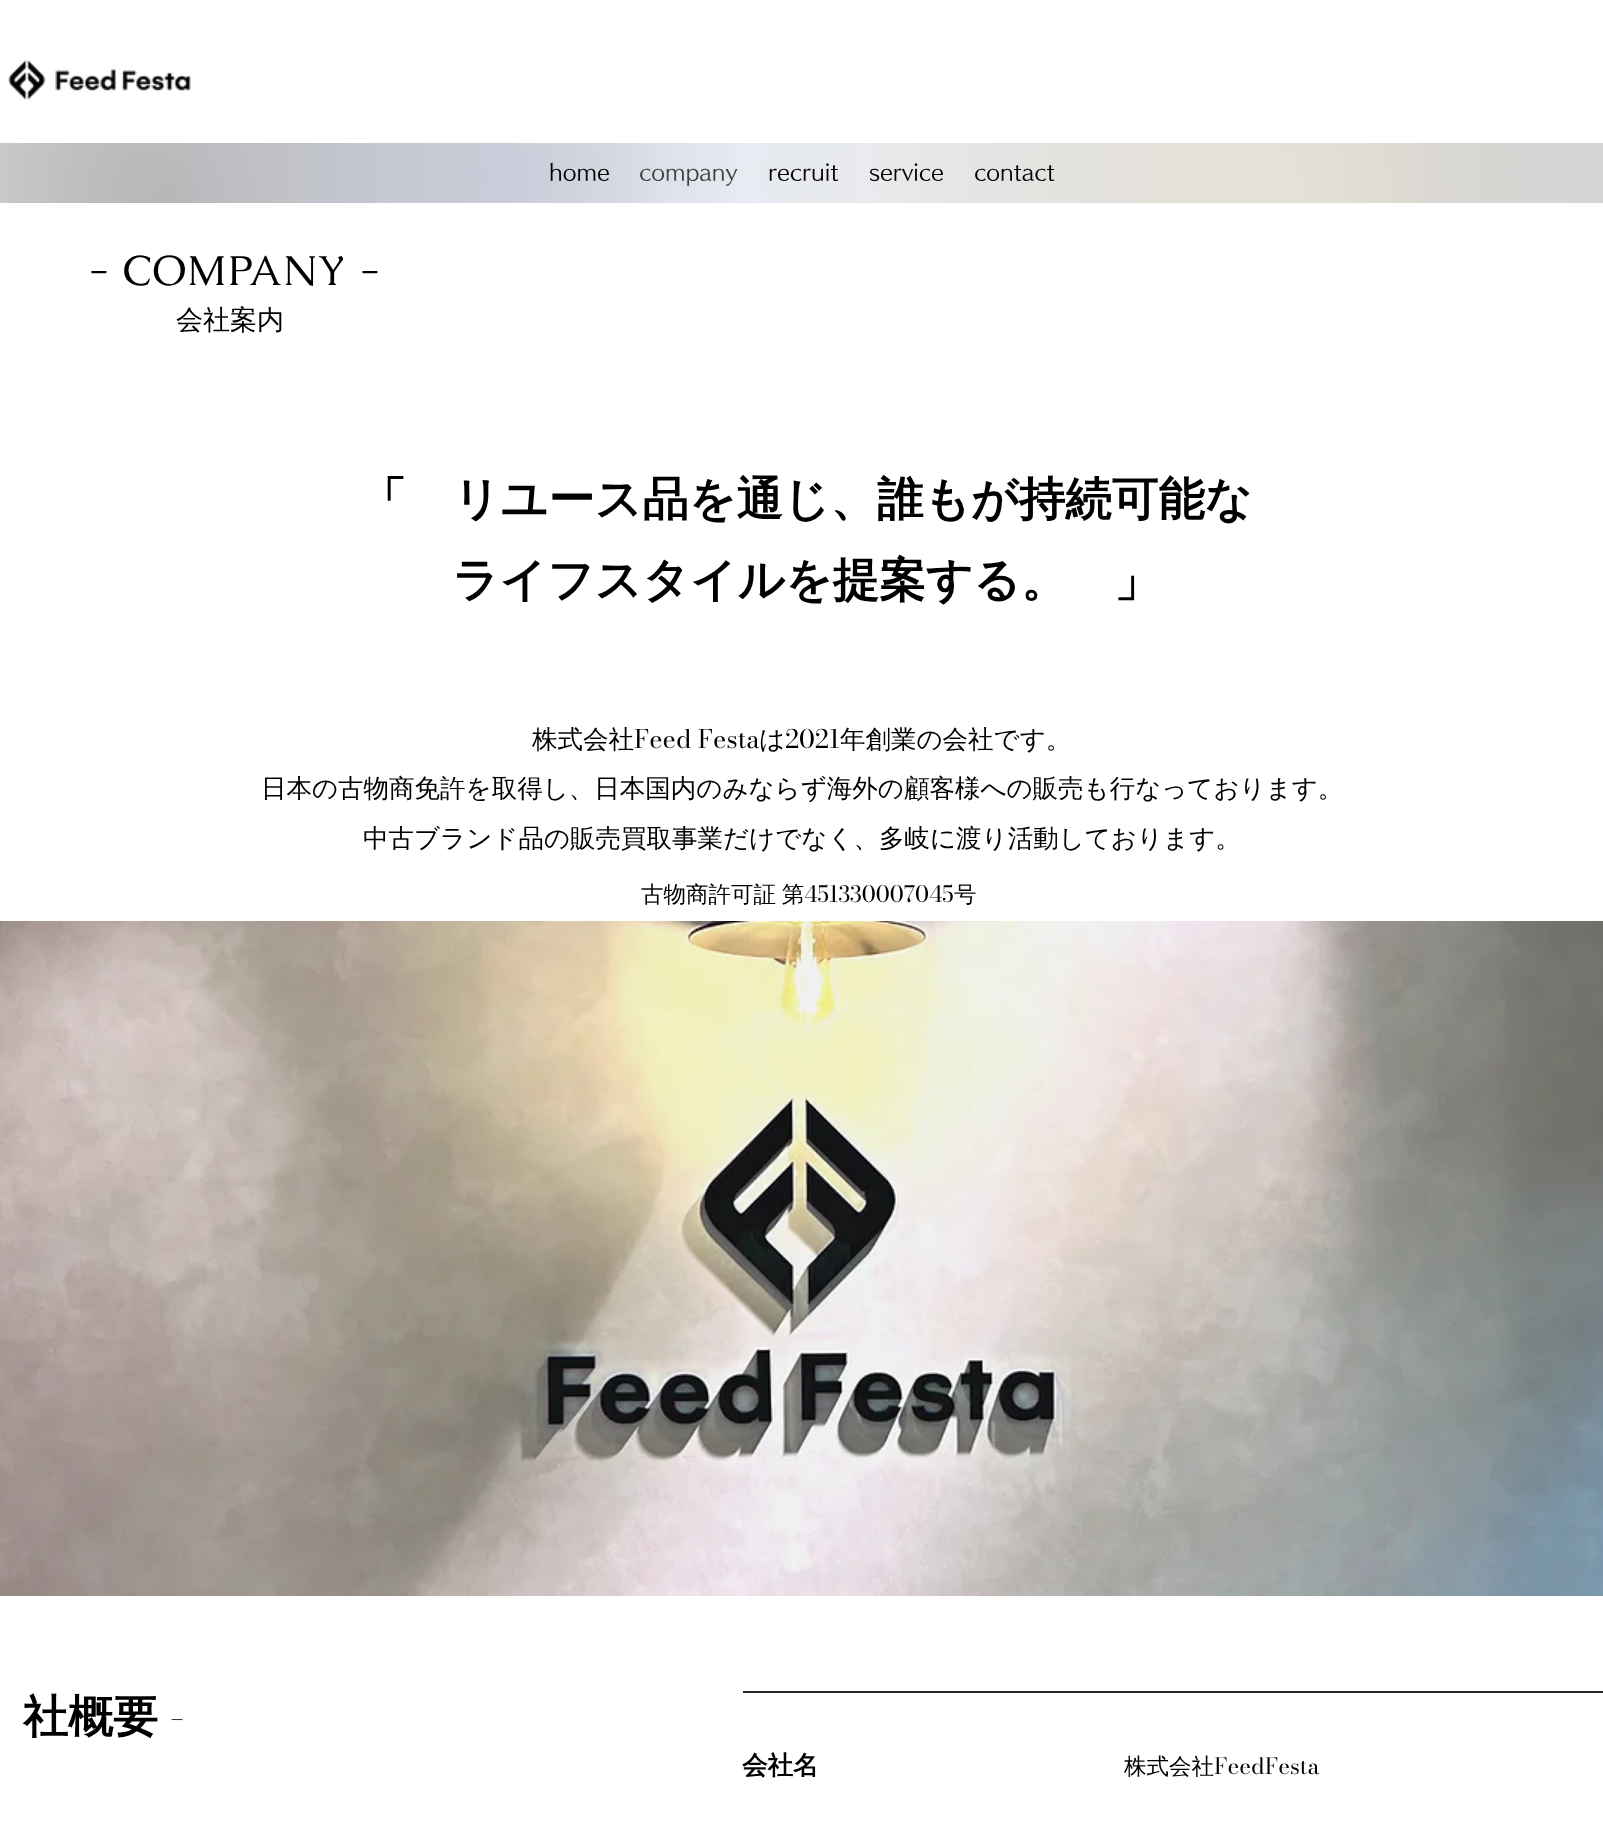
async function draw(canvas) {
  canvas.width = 1603;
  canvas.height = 1835;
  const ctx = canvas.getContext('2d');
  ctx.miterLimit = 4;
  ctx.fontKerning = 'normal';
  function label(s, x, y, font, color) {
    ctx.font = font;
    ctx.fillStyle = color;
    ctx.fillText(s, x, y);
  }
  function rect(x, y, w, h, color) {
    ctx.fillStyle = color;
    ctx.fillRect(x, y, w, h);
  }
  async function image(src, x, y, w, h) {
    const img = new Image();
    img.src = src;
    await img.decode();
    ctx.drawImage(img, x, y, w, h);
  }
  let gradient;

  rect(0, 0, 1603, 1835, '#fff');
  await image('assets/img1.png', 8, 60, 183, 40);
  gradient = ctx.createRadialGradient(1502, 149, 0, 1502, 149, 1503);
  gradient.addColorStop(0, '#d7dce8');
  gradient.addColorStop(0.7, '#fff');
  ctx.fillStyle = gradient;
  ctx.fillRect(518, 143, 1085, 60);
  gradient = ctx.createRadialGradient(1439, 195, 0, 1439, 195, 1440);
  gradient.addColorStop(0, '#bfbfbf9e');
  gradient.addColorStop(0.5, '#bfbfbf00');
  ctx.fillStyle = gradient;
  ctx.fillRect(762, 143, 841, 60);
  gradient = ctx.createRadialGradient(172, 194, 0, 172, 194, 1432);
  gradient.addColorStop(0, '#808080a1');
  gradient.addColorStop(0.35, '#80808000');
  ctx.fillStyle = gradient;
  ctx.fillRect(0, 143, 657, 60);
  gradient = ctx.createRadialGradient(301, 145, 0, 301, 145, 1304);
  gradient.addColorStop(0, '#bfbfbfa1');
  gradient.addColorStop(0.35, '#bfbfbf00');
  ctx.fillStyle = gradient;
  ctx.fillRect(0, 143, 735, 60);
  gradient = ctx.createRadialGradient(501, 175, 0, 501, 175, 1103);
  gradient.addColorStop(0, '#c0c7dba1');
  gradient.addColorStop(0.35, '#c0c7db00');
  ctx.fillStyle = gradient;
  ctx.fillRect(145, 143, 715, 60);
  gradient = ctx.createRadialGradient(1273, 193, 0, 1273, 193, 1274);
  gradient.addColorStop(0, '#f4ebd7a1');
  gradient.addColorStop(0.35, '#f4ebd700');
  ctx.fillStyle = gradient;
  ctx.fillRect(878, 143, 725, 60);
  label('home', 549, 180, '500 21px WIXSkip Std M', '#000');
  label('company', 639, 180, '500 21px WIXSkip Std M', '#404040');
  label('recruit', 768, 180, '500 21px WIXSkip Std M', '#000');
  label('service', 869, 180, '500 21px WIXSkip Std M', '#000');
  label('contact', 974, 180, '500 21px WIXSkip Std M', '#000');
  ctx.letterSpacing = '1.25px';
  label('- COMPANY -', 88, 285, '42px Caudex', '#000');
  ctx.letterSpacing = '0px';
  label('会社案内', 176, 329, '500 27px WenQuanYi Zen Hei', '#000');
  label('「　リユース品を通じ、誰もが持続可能な', 360, 515, 'bold 46.5px WenQuanYi Zen Hei', '#000');
  label('ライフスタイルを提案する。　」', 452, 596, 'bold 46.5px WenQuanYi Zen Hei', '#000');
  label('株式会社', 532, 748, '500 25.5px WenQuanYi Zen Hei', '#000');
  label('Feed Festa', 634, 748, '25.5px Bodoni Moda', '#000');
  label('は', 759, 748, '500 25.5px WenQuanYi Zen Hei', '#000');
  label('2021', 785, 748, '25.5px Bodoni Moda', '#000');
  label('年創業の会社です。', 840, 748, '500 25.5px WenQuanYi Zen Hei', '#000');
  label('日本の古物商免許を取得し、日本国内のみならず海外の顧客様への販売も行なっております。', 261, 797, '500 25.5px WenQuanYi Zen Hei', '#000');
  label('中古ブランド品の販売買取事業だけでなく、多岐に渡り活動しております。', 363, 847, '500 25.5px WenQuanYi Zen Hei', '#000');
  ctx.wordSpacing = '-1px';
  label('古物商許可証 第', 641, 902, '500 22.5px WenQuanYi Zen Hei', '#000');
  ctx.wordSpacing = '0px';
  label('451330007045', 804, 902, '22.5px Bodoni Moda', '#000');
  label('号', 954, 902, '500 22.5px WenQuanYi Zen Hei', '#000');
  await image('assets/img2.png', 0, 921, 1603, 675);
  rect(743, 1691, 860, 2, '#282626');
  label('社概要', 23, 1732, 'bold 45px WenQuanYi Zen Hei', '#000');
  label('-', 169, 1732, 'bold 45px Bodoni Moda', '#000');
  label('会社名', 742, 1774, 'bold 25.5px WenQuanYi Zen Hei', '#000');
  label('株式会社', 1124, 1774, '500 22.5px WenQuanYi Zen Hei', '#000');
  label('FeedFesta', 1214, 1774, '22.5px Bodoni Moda', '#000');
}

draw(document.querySelector('canvas'));
